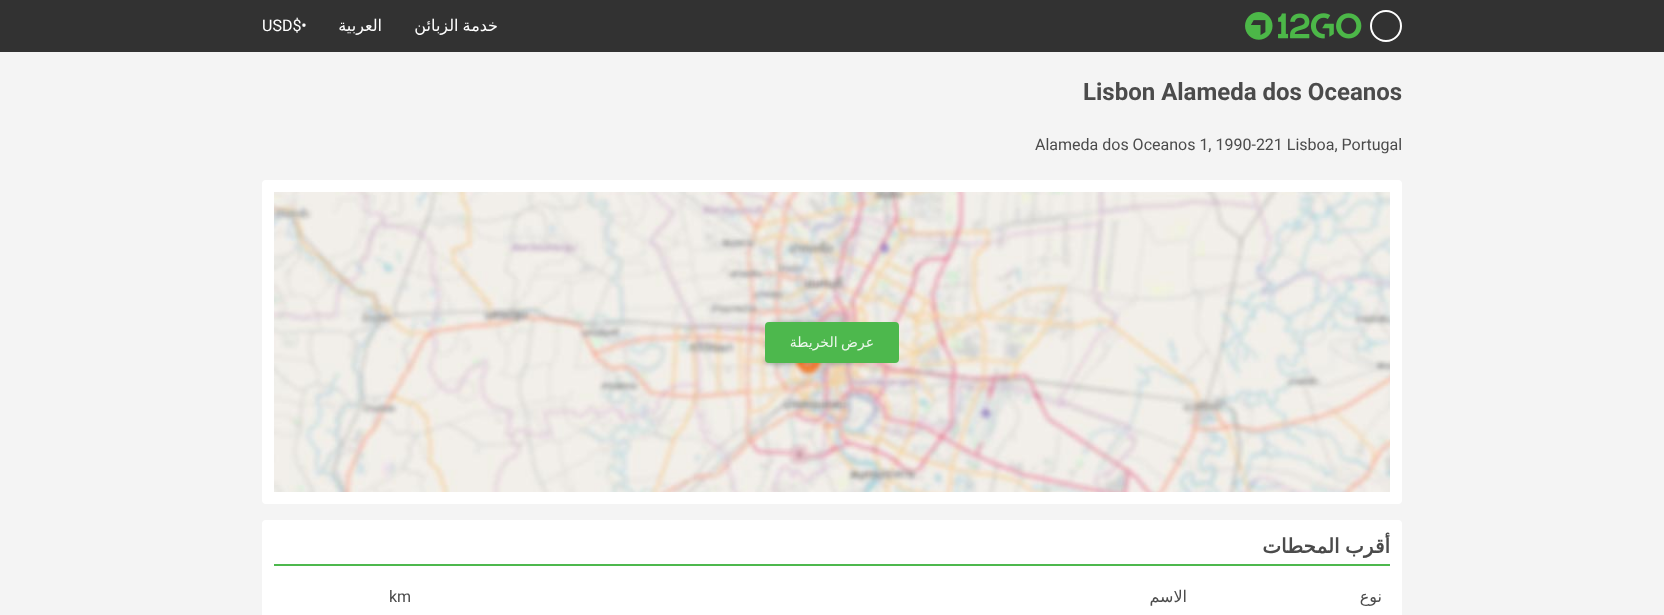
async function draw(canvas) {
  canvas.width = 1664;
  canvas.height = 615;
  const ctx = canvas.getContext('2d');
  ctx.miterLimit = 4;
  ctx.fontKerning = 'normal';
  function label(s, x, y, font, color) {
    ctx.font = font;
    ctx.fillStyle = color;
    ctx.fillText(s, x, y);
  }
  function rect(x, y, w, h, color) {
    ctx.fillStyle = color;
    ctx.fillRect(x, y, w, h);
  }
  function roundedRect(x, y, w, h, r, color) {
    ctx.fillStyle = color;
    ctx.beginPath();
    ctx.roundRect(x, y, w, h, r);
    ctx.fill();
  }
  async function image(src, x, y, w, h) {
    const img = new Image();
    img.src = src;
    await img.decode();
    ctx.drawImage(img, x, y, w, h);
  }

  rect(0, 0, 1664, 615, '#f4f4f4');
  rect(0, 0, 1664, 52, '#323232');
  label('USD$•', 262, 31, '16px Roboto', '#fff');
  ctx.direction = 'rtl';
  label('العربية', 382, 31, '16px DejaVu Sans', '#fff');
  ctx.wordSpacing = '-1px';
  label('خدمة الزبائن', 498, 31, '16px DejaVu Sans', '#fff');
  await image('assets/img1.png', 1245, 12, 117, 28);
  ctx.beginPath();
  ctx.arc(1386, 26, 15, 0, 2 * Math.PI);
  ctx.strokeStyle = '#fff';
  ctx.lineWidth = 2;
  ctx.stroke();
  ctx.wordSpacing = '0px';
  ctx.direction = 'ltr';
  label('Lisbon Alameda dos Oceanos', 1083, 100, 'bold 24px Roboto', '#4b4b4b');
  label('Alameda dos Oceanos 1, 1990-221 Lisboa, Portugal', 1035, 150, '16px Roboto', '#4b4b4b');
  roundedRect(262, 180, 1140, 324, 4, '#fff');
  await image('assets/img2.png', 274, 192, 1116, 300);
  roundedRect(765, 322, 134, 41, 4, '#4db84d');
  ctx.wordSpacing = '-1px';
  ctx.direction = 'rtl';
  label('عرض الخريطة', 874, 347, '14px DejaVu Sans', '#edf8ed');
  roundedRect(262, 520, 1140, 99, 4, '#fff');
  rect(274, 564, 1116, 2, '#4db84d');
  label('أقرب المحطات', 1390, 553, 'bold 20px DejaVu Sans', '#4b4b4b');
  ctx.wordSpacing = '0px';
  ctx.direction = 'ltr';
  label('km', 389, 602, '16px Roboto', '#4b4b4b');
  ctx.direction = 'rtl';
  label('الاسم', 1187, 602, '16px DejaVu Sans', '#4b4b4b');
  label('نوع', 1382, 602, '16px DejaVu Sans', '#4b4b4b');
}

draw(document.querySelector('canvas'));
